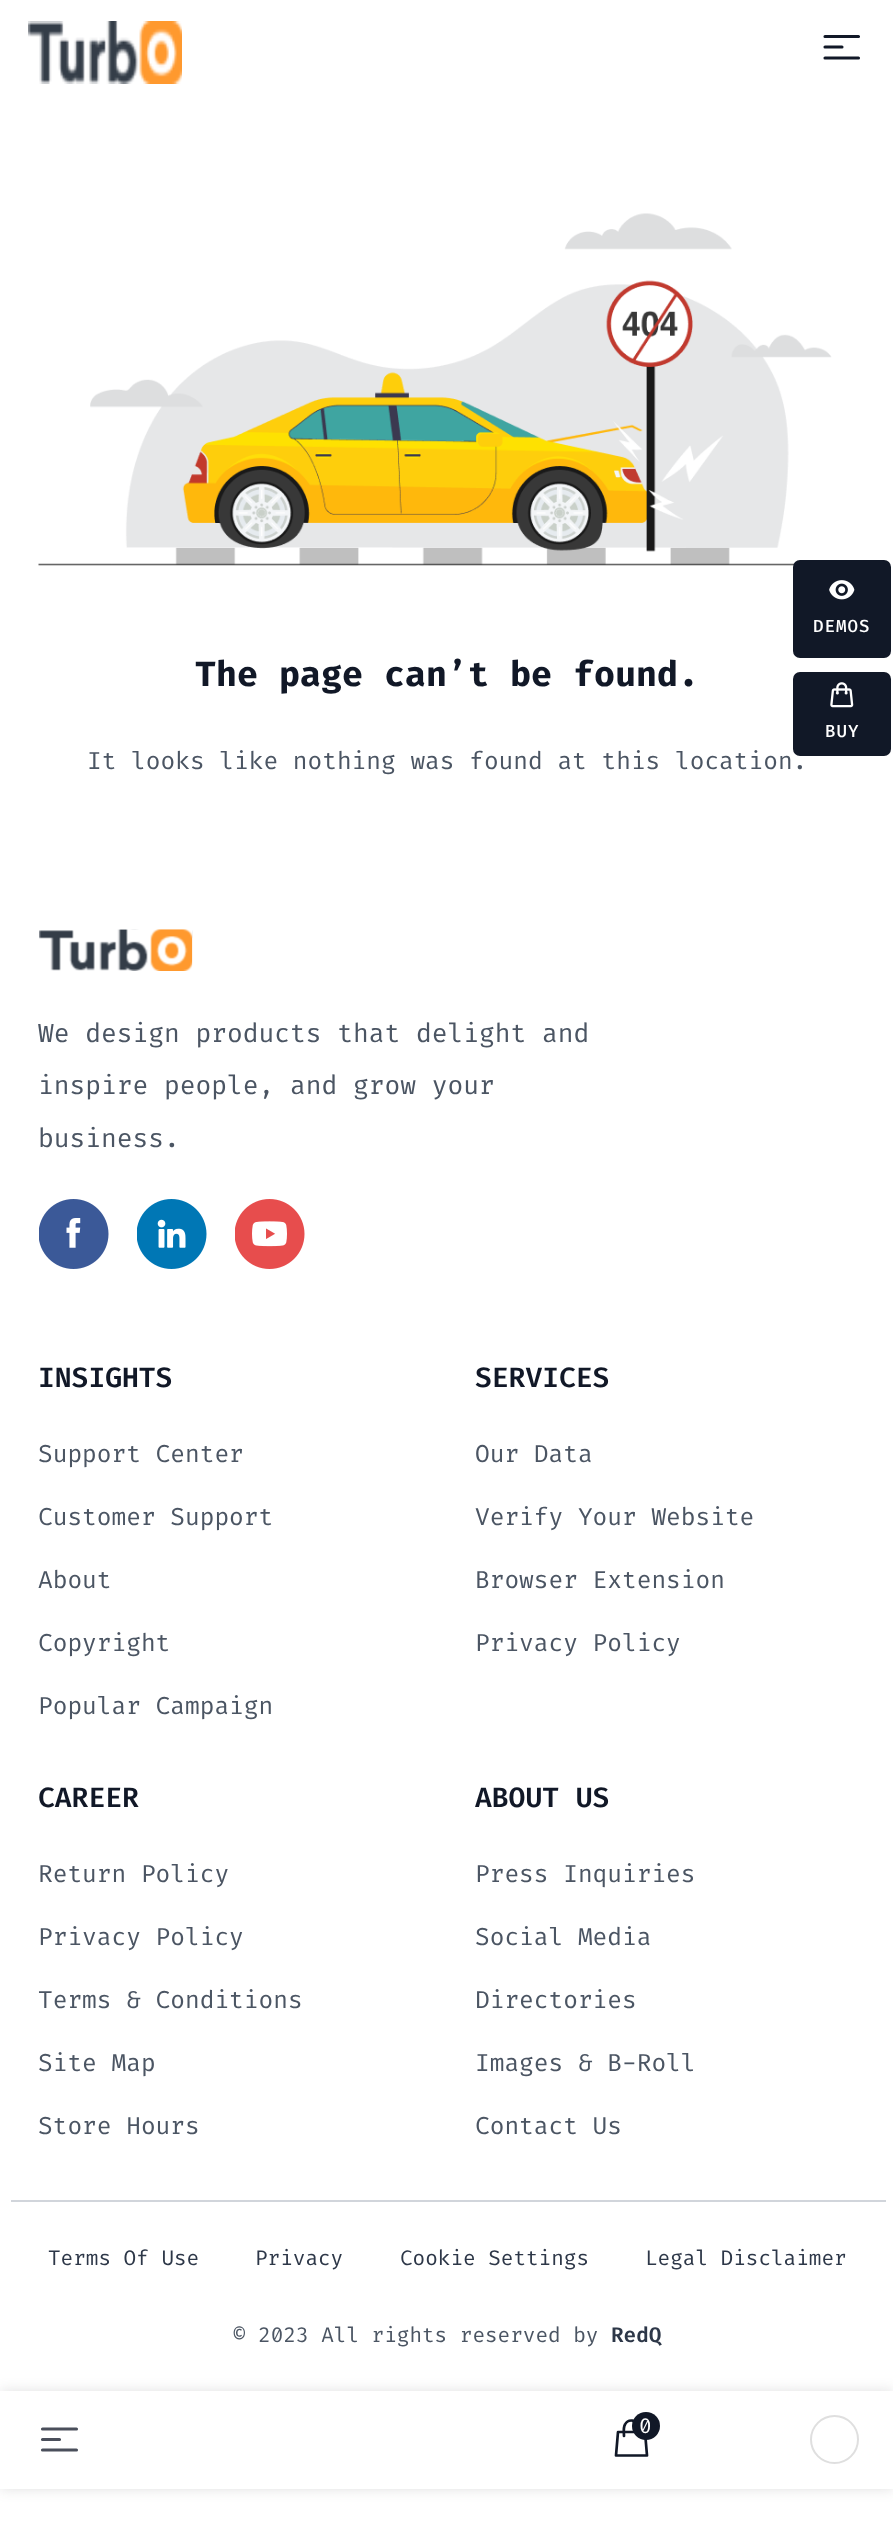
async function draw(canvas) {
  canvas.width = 893;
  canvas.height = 2545;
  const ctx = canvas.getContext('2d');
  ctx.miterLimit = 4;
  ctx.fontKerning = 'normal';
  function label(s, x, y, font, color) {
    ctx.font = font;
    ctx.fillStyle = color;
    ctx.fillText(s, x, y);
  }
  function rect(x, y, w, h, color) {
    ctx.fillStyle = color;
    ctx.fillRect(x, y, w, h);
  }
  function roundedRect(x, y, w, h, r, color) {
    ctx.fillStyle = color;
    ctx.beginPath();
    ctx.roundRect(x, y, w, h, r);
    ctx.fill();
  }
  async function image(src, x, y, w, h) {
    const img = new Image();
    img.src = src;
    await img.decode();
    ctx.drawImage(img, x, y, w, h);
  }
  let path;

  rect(0, 0, 893, 2545, '#fff');
  await image('assets/img1.png', 28, 21, 154, 63);
  path = new Path2D('M825 36.5H858.5M825 47H842M825 58H858.5');
  ctx.strokeStyle = '#111827';
  ctx.lineWidth = 3.1;
  ctx.lineCap = 'round';
  ctx.lineJoin = 'round';
  ctx.stroke(path);
  await image('assets/img2.png', 38, 213, 794, 353);
  label('The page can’t be found.', 195, 686, 'bold 35px Fira Code', '#111827');
  label('It looks like nothing was found at this location.', 87, 769, '300 24.5px Fira Code', '#4b5563');
  roundedRect(793, 560, 98, 98, 7, '#111827');
  await image('assets/img3.png', 829, 580, 26, 20);
  ctx.letterSpacing = '1px';
  label('DEMOS', 813, 632, '500 17.5px Fira Code', '#fff');
  roundedRect(793, 672, 98, 84, 7, '#111827');
  await image('assets/img4.png', 830, 682, 24, 26);
  label('BUY', 825, 737, '500 17.5px Fira Code', '#fff');
  await image('assets/img5.png', 39, 929, 154, 42);
  ctx.letterSpacing = '0px';
  label('We design products that delight and', 38, 1042, '300 26.25px Fira Code', '#4b5563');
  label('inspire people, and grow your', 38, 1094, '300 26.25px Fira Code', '#4b5563');
  label('business.', 38, 1147, '300 26.25px Fira Code', '#4b5563');
  await image('assets/img6.png', 39, 1199, 70, 70);
  await image('assets/img7.png', 137, 1199, 70, 70);
  await image('assets/img8.png', 235, 1199, 70, 70);
  label('INSIGHTS', 38, 1387, '600 28px Fira Code', '#111827');
  label('Support Center', 38, 1462, '300 24.5px Fira Code', '#4b5563');
  label('Customer Support', 38, 1525, '300 24.5px Fira Code', '#4b5563');
  label('About', 38, 1588, '300 24.5px Fira Code', '#4b5563');
  label('Copyright', 38, 1651, '300 24.5px Fira Code', '#4b5563');
  label('Popular Campaign', 38, 1714, '300 24.5px Fira Code', '#4b5563');
  label('SERVICES', 475, 1387, '600 28px Fira Code', '#111827');
  label('Our Data', 475, 1462, '300 24.5px Fira Code', '#4b5563');
  label('Verify Your Website', 475, 1525, '300 24.5px Fira Code', '#4b5563');
  label('Browser Extension', 475, 1588, '300 24.5px Fira Code', '#4b5563');
  label('Privacy Policy', 475, 1651, '300 24.5px Fira Code', '#4b5563');
  label('CAREER', 38, 1807, '600 28px Fira Code', '#111827');
  label('Return Policy', 38, 1882, '300 24.5px Fira Code', '#4b5563');
  label('Privacy Policy', 38, 1945, '300 24.5px Fira Code', '#4b5563');
  label('Terms & Conditions', 38, 2008, '300 24.5px Fira Code', '#4b5563');
  label('Site Map', 38, 2071, '300 24.5px Fira Code', '#4b5563');
  label('Store Hours', 38, 2134, '300 24.5px Fira Code', '#4b5563');
  label('ABOUT US', 475, 1807, '600 28px Fira Code', '#111827');
  label('Press Inquiries', 475, 1882, '300 24.5px Fira Code', '#4b5563');
  label('Social Media', 475, 1945, '300 24.5px Fira Code', '#4b5563');
  label('Directories', 475, 2008, '300 24.5px Fira Code', '#4b5563');
  label('Images & B-Roll', 475, 2071, '300 24.5px Fira Code', '#4b5563');
  label('Contact Us', 475, 2134, '300 24.5px Fira Code', '#4b5563');
  rect(11, 2200, 875, 2, '#d1d5db');
  label('Terms Of Use', 48, 2265, '300 21px Fira Code', '#2d3748');
  label('Privacy', 255, 2265, '300 21px Fira Code', '#2d3748');
  label('Cookie Settings', 400, 2265, '300 21px Fira Code', '#2d3748');
  label('Legal Disclaimer', 645, 2265, '300 21px Fira Code', '#2d3748');
  label('© 2023 All rights reserved by', 233, 2342, '300 21px Fira Code', '#4b5563');
  label('RedQ', 611, 2342, '600 21px Fira Code', '#2d3748');
  ctx.fillStyle = '#0000001f';
  ctx.filter = 'blur(7px)';
  ctx.beginPath();
  ctx.rect(0, 2391, 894, 98);
  ctx.fill();
  ctx.filter = 'none';
  rect(0, 2391, 893, 98, '#fff');
  path = new Path2D('M42.5 2429H76.5M42.5 2439.5H59.5M42.5 2450H76.5');
  ctx.strokeStyle = '#4a4f5b';
  ctx.stroke(path);
  path = new Path2D('M639 2436C639 2433 640 2429 639 2426C637 2419.5 628 2418.5 625 2424.5C623 2428 624 2432.5 624 2436M618 2432H645L647 2455.5H616Z');
  ctx.strokeStyle = '#111827';
  ctx.lineWidth = 2.7;
  ctx.stroke(path);
  ctx.fillStyle = '#111827';
  ctx.beginPath();
  ctx.arc(646, 2426, 14, 0, 2 * Math.PI);
  ctx.fill();
  label('0', 639, 2433, '300 21px Fira Code', '#fff');
  ctx.beginPath();
  ctx.arc(834.5, 2439.5, 23.5, 0, 2 * Math.PI);
  ctx.strokeStyle = '#dfdfdf';
  ctx.lineWidth = 2;
  ctx.stroke();
}

draw(document.querySelector('canvas'));
